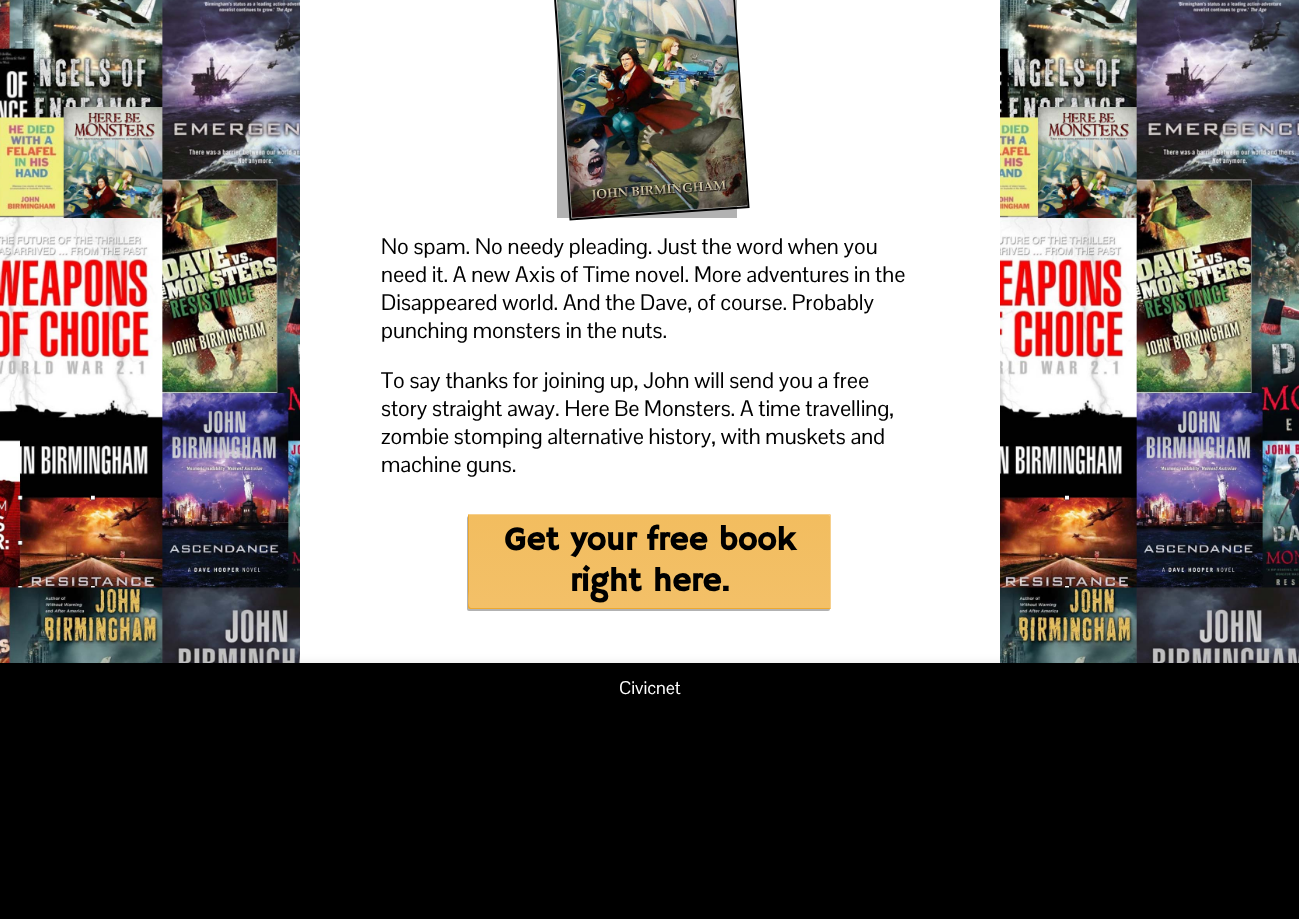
async function draw(canvas) {
  canvas.width = 1299;
  canvas.height = 919;
  const ctx = canvas.getContext('2d');
  ctx.miterLimit = 4;
  ctx.fontKerning = 'normal';
  function label(s, x, y, font, color) {
    ctx.font = font;
    ctx.fillStyle = color;
    ctx.fillText(s, x, y);
  }
  function rect(x, y, w, h, color) {
    ctx.fillStyle = color;
    ctx.fillRect(x, y, w, h);
  }
  async function image(src, x, y, w, h) {
    const img = new Image();
    img.src = src;
    await img.decode();
    ctx.drawImage(img, x, y, w, h);
  }
  let gradient, path;

  rect(0, 0, 1299, 919, '#fff');
  await image('assets/img1.png', 0, 0, 1299, 663);
  rect(300, 0, 700, 663, '#fff');
  ctx.fillStyle = '#0000004d';
  ctx.filter = 'blur(0.5px)';
  ctx.beginPath();
  ctx.rect(557, -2, 180, 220);
  ctx.fill();
  ctx.filter = 'none';
  path = new Path2D('M550.5-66.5L728.5-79L748.5 207L570.5 219.5Z');
  ctx.strokeStyle = '#000';
  ctx.lineWidth = 2;
  ctx.stroke(path);
  await image('assets/img2.png', 556, 0, 192, 218);
  label('No spam. No needy pleading. Just the word when you', 381, 254, '22px Pontano Sans', '#000');
  label('need it. A new Axis of Time novel. More adventures in the', 381, 282, '22px Pontano Sans', '#000');
  label('Disappeared world. And the Dave, of course. Probably', 381, 310, '22px Pontano Sans', '#000');
  label('punching monsters in the nuts.', 381, 338, '22px Pontano Sans', '#000');
  label('To say thanks for joining up, John will send you a free', 381, 388, '22px Pontano Sans', '#000');
  label('story straight away. Here Be Monsters. A time travelling,', 381, 416, '22px Pontano Sans', '#000');
  label('zombie stomping alternative history, with muskets and', 381, 444, '22px Pontano Sans', '#000');
  label('machine guns.', 381, 472, '22px Pontano Sans', '#000');
  ctx.fillStyle = '#0000004d';
  ctx.filter = 'blur(0.5px)';
  ctx.beginPath();
  ctx.roundRect(467, 516, 363, 95, 2);
  ctx.fill();
  ctx.filter = 'none';
  gradient = ctx.createLinearGradient(650, 514, 650, 609);
  gradient.addColorStop(0, '#f2bd5f');
  gradient.addColorStop(1, '#f3c068');
  ctx.fillStyle = gradient;
  ctx.beginPath();
  ctx.roundRect(468, 514, 363, 95, 2);
  ctx.fill();
  ctx.fillStyle = '#f6d08e';
  path = new Path2D('M469 515H828C829 515 830 516 830 517V609C830 609 831 608 831 607V516C831 515 830 514 829 514H470C469 514 468 515 468 515Z');
  ctx.fill(path);
  ctx.fillStyle = '#eea92f';
  path = new Path2D('M469 514C469 514 468 515 468 516V607C468 608 469 609 470 609H829C830 609 831 608 831 608H471C467 608 469 593 469 591Z');
  ctx.fill(path);
  label('Get your free book', 504, 550, 'bold 33px Hammersmith One', '#000');
  label('right here.', 570, 591, 'bold 33px Hammersmith One', '#000');
  ctx.fillStyle = '#0000001a';
  ctx.filter = 'blur(5px)';
  ctx.beginPath();
  ctx.rect(0, 663, 1299, 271);
  ctx.fill();
  ctx.filter = 'none';
  rect(0, 663, 1299, 256, '#000');
  label('Civicnet', 619, 694, '18px Pontano Sans', '#fff');
}

draw(document.querySelector('canvas'));
